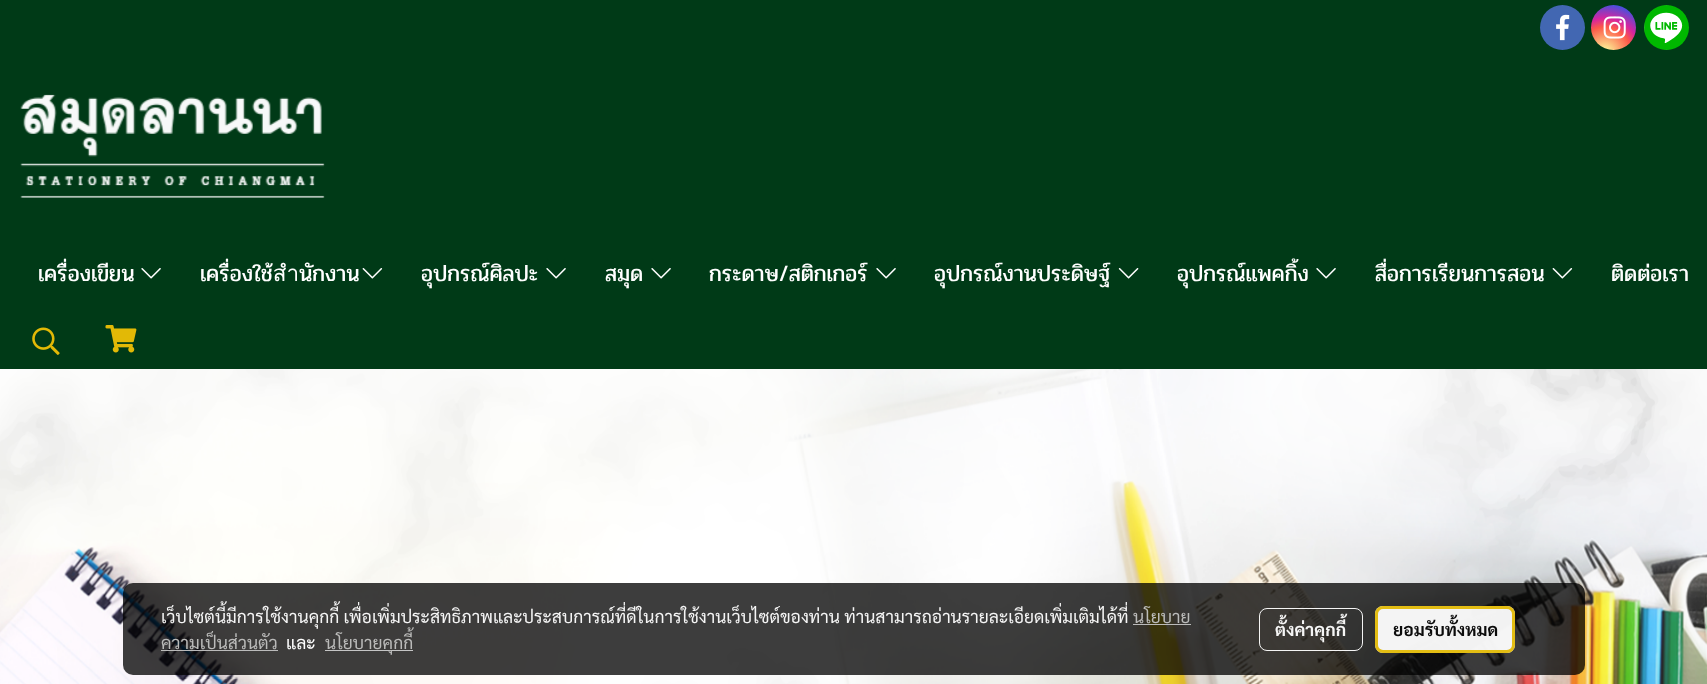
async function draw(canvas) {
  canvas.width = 1707;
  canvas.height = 684;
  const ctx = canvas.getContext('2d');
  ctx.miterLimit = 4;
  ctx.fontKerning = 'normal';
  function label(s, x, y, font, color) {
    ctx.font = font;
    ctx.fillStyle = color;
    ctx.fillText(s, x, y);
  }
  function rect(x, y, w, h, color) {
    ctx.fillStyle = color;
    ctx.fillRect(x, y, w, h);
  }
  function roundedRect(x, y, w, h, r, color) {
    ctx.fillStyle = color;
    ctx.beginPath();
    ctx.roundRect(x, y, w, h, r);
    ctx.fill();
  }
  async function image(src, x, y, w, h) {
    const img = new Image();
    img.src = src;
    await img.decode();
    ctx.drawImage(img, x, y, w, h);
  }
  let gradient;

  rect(0, 0, 1707, 684, '#fff');
  await image('assets/img1.png', 0, 369, 1707, 315);
  rect(0, 0, 1707, 369, '#003a17');
  ctx.fillStyle = '#4267b2';
  ctx.beginPath();
  ctx.arc(1562.5, 27.5, 22.5, 0, 2 * Math.PI);
  ctx.fill();
  await image('assets/img2.png', 1556, 14, 14, 27);
  gradient = ctx.createRadialGradient(1605, 53, 0, 1605, 53, 58);
  gradient.addColorStop(0, '#fdf497');
  gradient.addColorStop(0.05, '#fdf497');
  gradient.addColorStop(0.45, '#fd5949');
  gradient.addColorStop(0.6, '#d6249f');
  gradient.addColorStop(0.9, '#285aeb');
  ctx.fillStyle = gradient;
  ctx.beginPath();
  ctx.arc(1613.5, 27.5, 22.5, 0, 2 * Math.PI);
  ctx.fill();
  await image('assets/img3.png', 1603, 16, 23, 23);
  ctx.fillStyle = '#00b800';
  ctx.beginPath();
  ctx.arc(1666.5, 27.5, 22.5, 0, 2 * Math.PI);
  ctx.fill();
  await image('assets/img4.png', 1644, 5, 39, 45);
  await image('assets/img5.png', 20, 94, 305, 104);
  label('เครื่องเขียน', 38, 281, '22.5px Pridi', '#fff');
  await image('assets/img6.png', 141, 268, 20, 11);
  label('เครื่องใช้สำนักงาน', 200, 281, '22.5px Pridi', '#fff');
  await image('assets/img7.png', 362, 268, 21, 11);
  label('อุปกรณ์ศิลปะ', 421, 281, '22.5px Pridi', '#fff');
  await image('assets/img6.png', 546, 268, 20, 11);
  label('สมุด', 605, 281, '22.5px Pridi', '#fff');
  await image('assets/img6.png', 651, 268, 20, 11);
  label('กระดาษ/สติกเกอร์', 709, 281, '22.5px Pridi', '#fff');
  await image('assets/img6.png', 876, 268, 20, 11);
  label('อุปกรณ์งานประดิษฐ์', 934, 281, '22.5px Pridi', '#fff');
  await image('assets/img8.png', 1118, 268, 21, 11);
  label('อุปกรณ์แพคกิ้ง', 1177, 281, '22.5px Pridi', '#fff');
  await image('assets/img6.png', 1316, 268, 20, 11);
  label('สื่อการเรียนการสอน', 1375, 281, '22.5px Pridi', '#fff');
  await image('assets/img7.png', 1552, 268, 21, 11);
  label('ติดต่อเรา', 1611, 281, '22.5px Pridi', '#fff');
  await image('assets/img9.png', 32, 327, 28, 28);
  await image('assets/img10.png', 105, 325, 32, 28);
  roundedRect(123, 583, 1462, 92, 10, '#000000c2');
  label('เว็บไซต์นี้มีการใช้งานคุกกี้ เพื่อเพิ่มประสิทธิภาพและประสบการณ์ที่ดีในการใช้งานเว็บไซต์ของท่าน ท่านสามารถอ่านรายละเอียดเพิ่มเติมได้ที่', 161, 623, '17.5px Sarabun', '#f5f5f5');
  label('นโยบาย', 1133, 623, '17.5px Sarabun', '#bbbbba');
  rect(1133, 624, 58, 1, '#c2c2c2f2');
  label('ความเป็นส่วนตัว', 161, 649, '17.5px Sarabun', '#bbbbba');
  rect(161, 650, 117, 1, '#c2c2c2f2');
  label('และ', 286, 649, '17.5px Sarabun', '#fff');
  rect(325, 650, 88, 1, '#c5c5c5');
  label('นโยบายคุกกี้', 325, 649, '17.5px Sarabun', '#bbbbba');
  ctx.beginPath();
  ctx.roundRect(1259.5, 608.5, 103, 42, 7.5);
  ctx.strokeStyle = '#fffffff2';
  ctx.stroke();
  label('ตั้งค่าคุกกี้', 1275, 636, 'bold 17.5px Sarabun', '#f5f5f5');
  roundedRect(1375, 606, 140, 47, 8, '#fffffff2');
  ctx.beginPath();
  ctx.roundRect(1376.5, 607.5, 137, 44, 6.5);
  ctx.strokeStyle = '#e2b906f2';
  ctx.lineWidth = 3;
  ctx.stroke();
  label('ยอมรับทั้งหมด', 1393, 636, 'bold 17.5px Sarabun', '#0c0c0c');
}

draw(document.querySelector('canvas'));
